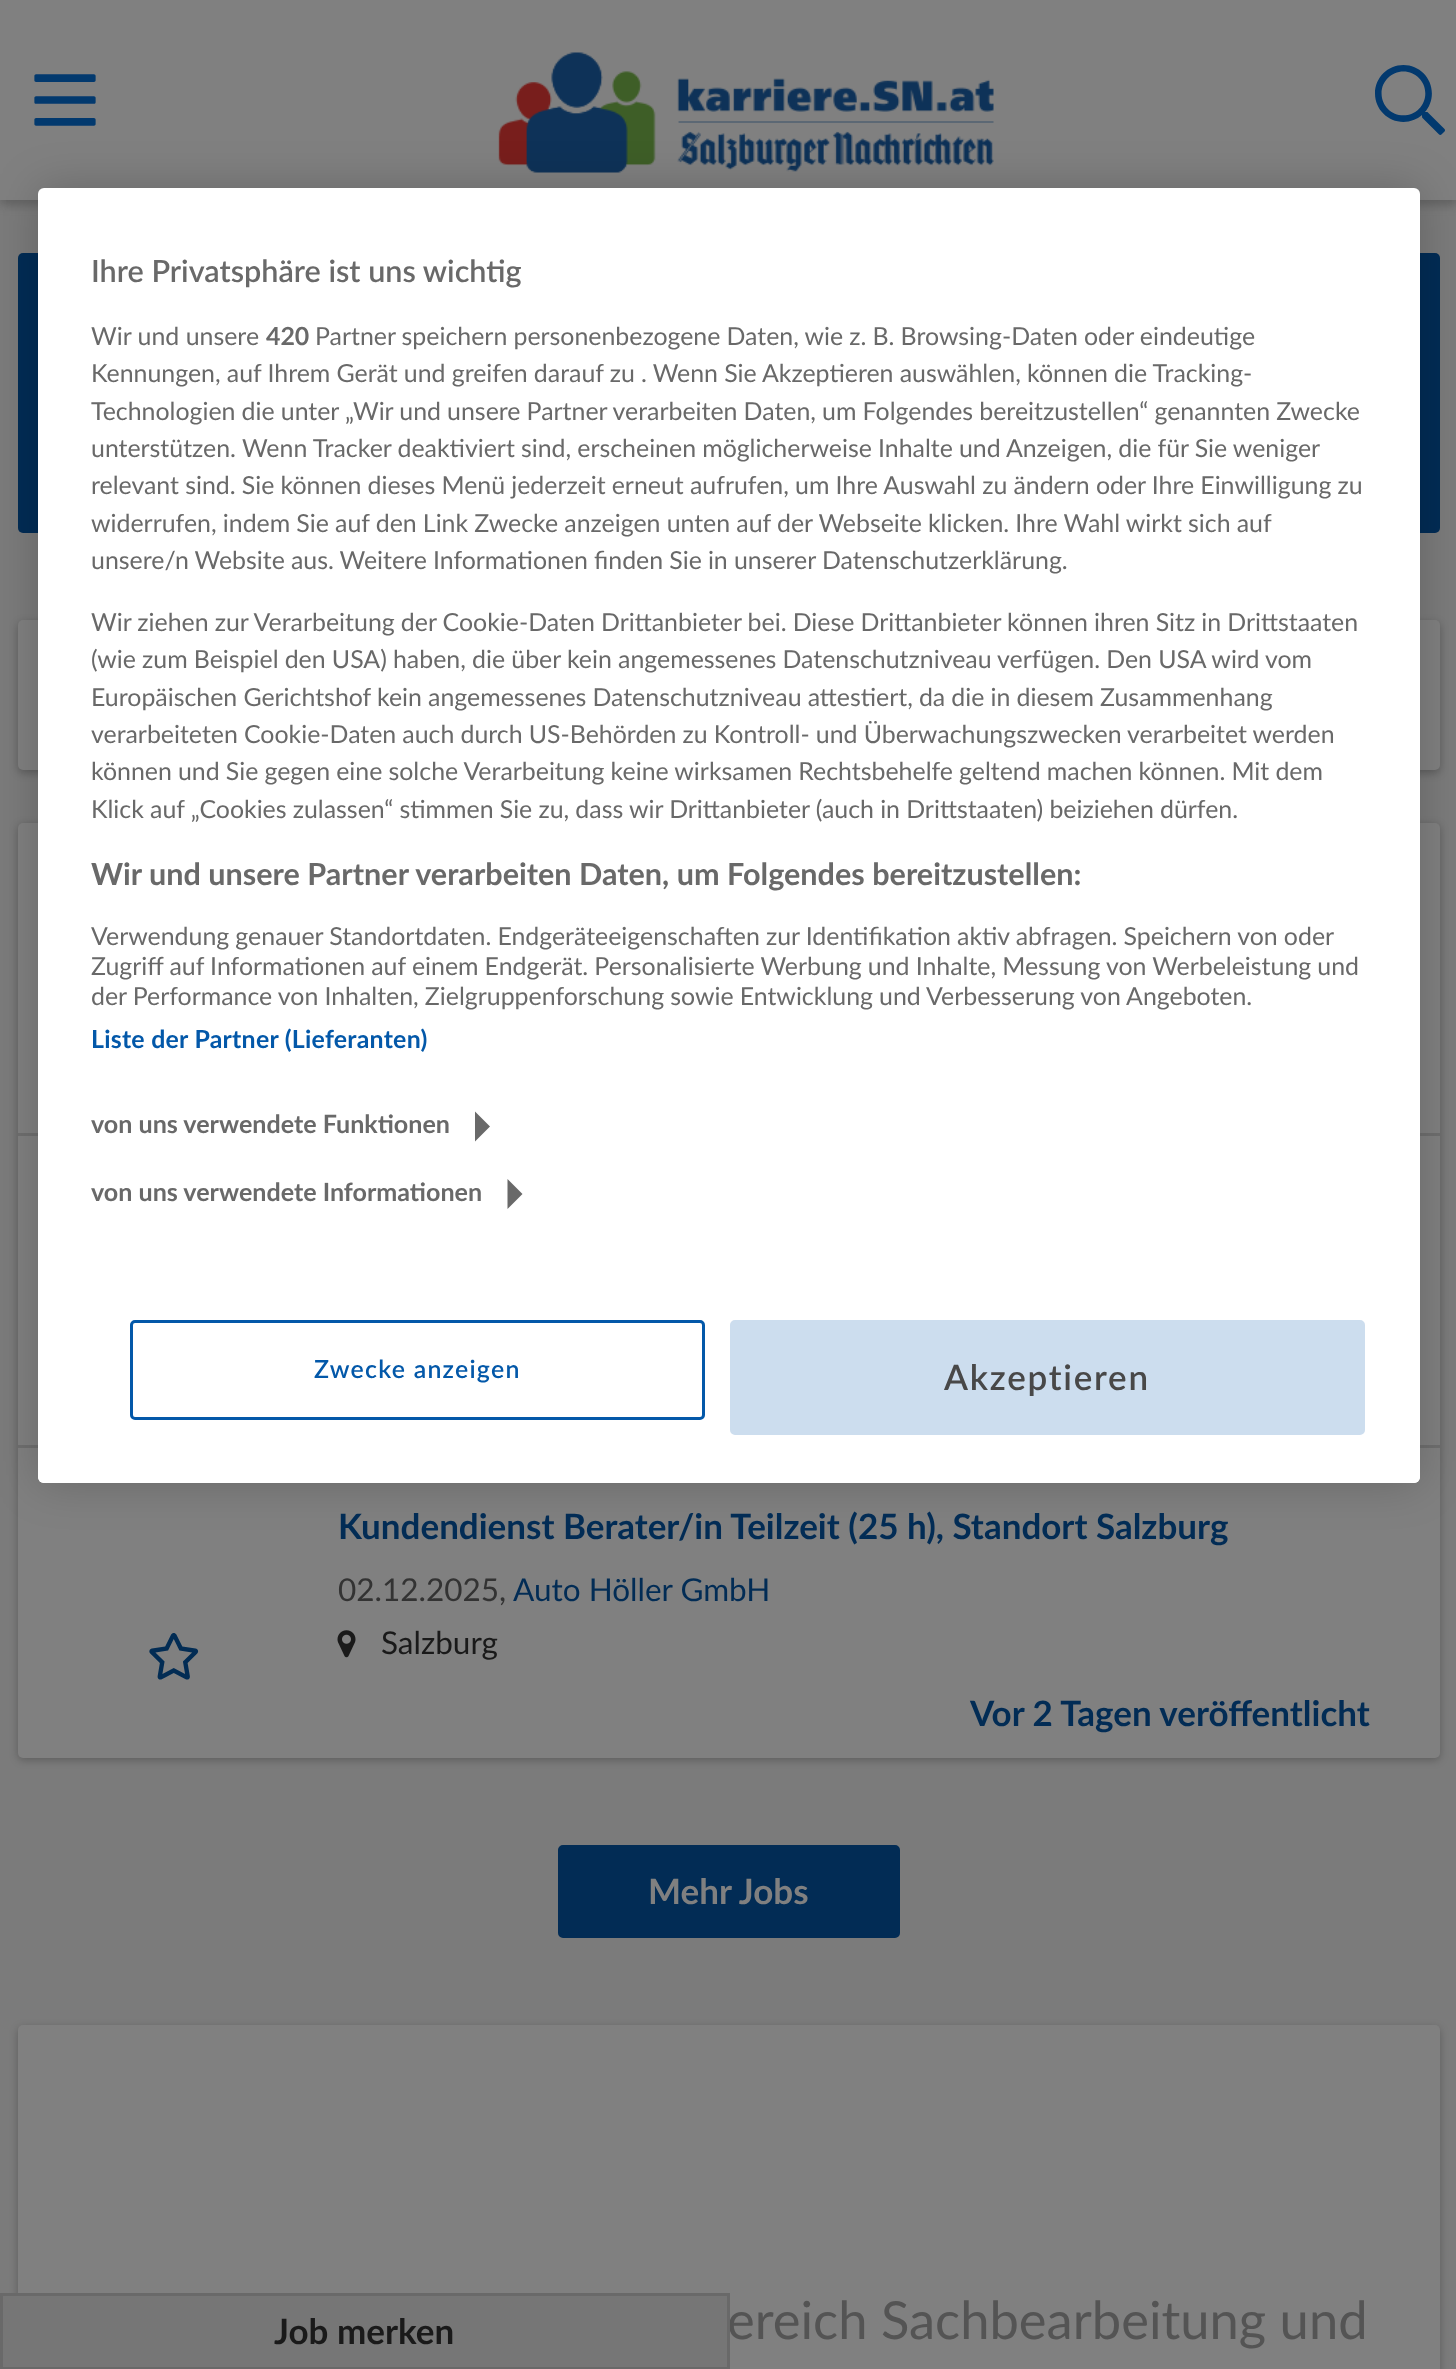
async function draw(canvas) {
  canvas.width = 1456;
  canvas.height = 2369;
  const ctx = canvas.getContext('2d');
  ctx.miterLimit = 4;
  ctx.fontKerning = 'normal';
  function label(s, x, y, font, color) {
    ctx.font = font;
    ctx.fillStyle = color;
    ctx.fillText(s, x, y);
  }
  function rect(x, y, w, h, color) {
    ctx.fillStyle = color;
    ctx.fillRect(x, y, w, h);
  }
  function roundedRect(x, y, w, h, r, color) {
    ctx.fillStyle = color;
    ctx.beginPath();
    ctx.roundRect(x, y, w, h, r);
    ctx.fill();
  }
  async function image(src, x, y, w, h) {
    const img = new Image();
    img.src = src;
    await img.decode();
    ctx.drawImage(img, x, y, w, h);
  }
  let gradient, path;

  rect(0, 0, 1456, 2369, '#7b7b7b');
  ctx.fillStyle = '#49494980';
  ctx.filter = 'blur(5px)';
  ctx.beginPath();
  ctx.rect(0, 5, 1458, 200);
  ctx.fill();
  ctx.filter = 'none';
  rect(0, 0, 1456, 200, '#808080');
  await image('assets/img1.png', 34, 74, 62, 52);
  await image('assets/img2.png', 498, 52, 496, 121);
  await image('assets/img3.png', 1375, 65, 70, 70);
  roundedRect(18, 253, 1422, 280, 5, '#022c55');
  ctx.fillStyle = '#00000040';
  ctx.filter = 'blur(4px)';
  ctx.beginPath();
  ctx.roundRect(18, 623, 1422, 150, 5);
  ctx.fill();
  ctx.filter = 'none';
  roundedRect(18, 620, 1422, 150, 5, '#808080');
  ctx.fillStyle = '#00000040';
  ctx.filter = 'blur(4px)';
  ctx.beginPath();
  ctx.roundRect(18, 825, 1422, 935, 5);
  ctx.fill();
  ctx.filter = 'none';
  roundedRect(18, 823, 1422, 935, 5, '#808080');
  rect(18, 1133, 1422, 3, '#6f6f6f');
  rect(18, 1445, 1422, 3, '#6f6f6f');
  ctx.fillStyle = '#00000033';
  ctx.filter = 'blur(22.5px)';
  ctx.beginPath();
  ctx.roundRect(38, 188, 1382, 1295, 6);
  ctx.fill();
  ctx.filter = 'none';
  roundedRect(38, 188, 1382, 1295, 6, '#fff');
  label('Ihre Privatsphäre ist uns wichtig', 91, 282, '600 30.6px Lato', '#696969');
  label('Wir und unsere', 91, 345, '24.9px Lato', '#696969');
  label('420', 266, 345, 'bold 24.9px Lato', '#696969');
  ctx.wordSpacing = '-0.25px';
  label('Partner speichern personenbezogene Daten, wie z. B. Browsing-Daten oder eindeutige', 315, 345, '24.9px Lato', '#696969');
  ctx.wordSpacing = '-0.2px';
  label('Kennungen, auf Ihrem Gerät und greifen darauf zu . Wenn Sie Akzeptieren auswählen, können die Tracking-', 91, 382, '24.9px Lato', '#696969');
  ctx.wordSpacing = '-0.25px';
  label('Technologien die unter „Wir und unsere Partner verarbeiten Daten, um Folgendes bereitzustellen“ genannten Zwecke', 91, 420, '24.9px Lato', '#696969');
  ctx.wordSpacing = '0px';
  label('unterstützen.', 91, 457, '24.9px Lato', '#696969');
  ctx.wordSpacing = '-0.25px';
  label('Wenn Tracker deaktiviert sind, erscheinen möglicherweise Inhalte und Anzeigen, die für Sie weniger', 242, 457, '24.9px Lato', '#696969');
  ctx.wordSpacing = '-0.2px';
  label('relevant sind. Sie können dieses Menü jederzeit erneut aufrufen, um Ihre Auswahl zu ändern oder Ihre Einwilligung zu', 91, 494, '24.9px Lato', '#696969');
  label('widerrufen, indem Sie auf den Link Zwecke anzeigen unten auf der Webseite klicken. Ihre Wahl wirkt sich auf', 91, 532, '24.9px Lato', '#696969');
  ctx.wordSpacing = '-0.25px';
  label('unsere/n Website aus. Weitere Informationen finden Sie in unserer Datenschutzerklärung.', 91, 569, '24.9px Lato', '#696969');
  label('Wir ziehen zur Verarbeitung der Cookie-Daten Drittanbieter bei. Diese Drittanbieter können ihren Sitz in Drittstaaten', 91, 631, '24.9px Lato', '#696969');
  ctx.wordSpacing = '-0.2px';
  label('(wie zum Beispiel den USA) haben, die über kein angemessenes Datenschutzniveau verfügen. Den USA wird vom', 91, 668, '24.9px Lato', '#696969');
  ctx.wordSpacing = '-0.25px';
  label('Europäischen Gerichtshof kein angemessenes Datenschutzniveau attestiert, da die in diesem Zusammenhang', 91, 706, '24.9px Lato', '#696969');
  label('verarbeiteten Cookie-Daten auch durch US-Behörden zu Kontroll- und Überwachungszwecken verarbeitet werden', 91, 743, '24.9px Lato', '#696969');
  label('können und Sie gegen eine solche Verarbeitung keine wirksamen Rechtsbehelfe geltend machen können. Mit dem', 91, 780, '24.9px Lato', '#696969');
  ctx.wordSpacing = '-0.2px';
  label('Klick auf „Cookies zulassen“ stimmen Sie zu, dass wir Drittanbieter (auch in Drittstaaten) beiziehen dürfen.', 91, 818, '24.9px Lato', '#696969');
  ctx.wordSpacing = '0px';
  label('Wir und unsere Partner verarbeiten Daten, um Folgendes bereitzustellen:', 91, 885, 'bold 30.6px Lato', '#696969');
  ctx.wordSpacing = '-0.25px';
  label('Verwendung genauer Standortdaten. Endgeräteeigenschaften zur Identifikation aktiv abfragen. Speichern von oder', 91, 945, '24.9px Lato', '#696969');
  label('Zugriff auf Informationen auf einem Endgerät. Personalisierte Werbung und Inhalte, Messung von Werbeleistung und', 91, 975, '24.9px Lato', '#696969');
  label('der Performance von Inhalten, Zielgruppenforschung sowie Entwicklung und Verbesserung von Angeboten.', 91, 1005, '24.9px Lato', '#696969');
  ctx.letterSpacing = '0.25px';
  ctx.wordSpacing = '0px';
  label('Liste der Partner (Lieferanten)', 91, 1048, 'bold 24.9px Lato', '#0358a9');
  ctx.letterSpacing = '0px';
  label('von uns verwendete Funktionen', 91, 1133, 'bold 25.1px Lato', '#696969');
  path = new Path2D('M475 1141.5V1111.5L490 1126.5Z');
  ctx.fill(path);
  label('von uns verwendete Informationen', 91, 1201, 'bold 25.1px Lato', '#696969');
  path = new Path2D('M507.5 1209V1179L522.5 1194Z');
  ctx.fill(path);
  gradient = ctx.createLinearGradient(729, 1239, 729, 1482);
  gradient.addColorStop(0, '#ffffff00');
  gradient.addColorStop(0.18, '#fff');
  ctx.fillStyle = gradient;
  ctx.beginPath();
  ctx.roundRect(38, 1240, 1382, 243, [0, 0, 6, 6]);
  ctx.fill();
  ctx.beginPath();
  ctx.roundRect(131.5, 1321.5, 572, 97, 3.5);
  ctx.strokeStyle = '#0358a9';
  ctx.lineWidth = 3;
  ctx.stroke();
  ctx.letterSpacing = '1.25px';
  label('Zwecke anzeigen', 314, 1378, '600 24.9px Lato', '#0358a9');
  ctx.fillStyle = '#cde';
  ctx.beginPath();
  ctx.roundRect(731.5, 1321.5, 632, 112, 3.5);
  ctx.fill();
  ctx.strokeStyle = '#cde';
  ctx.stroke();
  ctx.letterSpacing = '1.75px';
  label('Akzeptieren', 944, 1390, '600 35px Lato', '#484848');
  await image('assets/img4.png', 149, 1633, 50, 47);
  ctx.letterSpacing = '0px';
  label('Kundendienst Berater/in Teilzeit (25 h), Standort Salzburg', 338, 1539, 'bold 35px Lato', '#022c55');
  label('02.12.2025,', 338, 1601, '31.5px Lato', '#333');
  label('Auto Höller GmbH', 513, 1601, '31.5px Lato', '#022c55');
  await image('assets/img5.png', 337, 1630, 19, 28);
  label('Salzburg', 381, 1654, '31.5px Lato', '#1a1a1a');
  label('Vor 2 Tagen veröffentlicht', 970, 1726, 'bold 35px Lato', '#022c55');
  ctx.beginPath();
  ctx.roundRect(559.5, 1846.5, 339, 90, 3.5);
  ctx.fill();
  ctx.strokeStyle = '#022c55';
  ctx.stroke();
  label('Mehr Jobs', 648, 1904, 'bold 35px Lato', '#808080');
  ctx.fillStyle = '#00000040';
  ctx.filter = 'blur(4px)';
  ctx.beginPath();
  ctx.roundRect(18, 2028, 1422, 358, 5);
  ctx.fill();
  ctx.filter = 'none';
  roundedRect(18, 2025, 1422, 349, 5, '#808080');
  label('ereich Sachbearbeitung und', 727, 2339, '52.5px Lato', '#545454');
  ctx.fillStyle = '#767676';
  ctx.beginPath();
  ctx.rect(1.5, 2294.5, 727, 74);
  ctx.fill();
  ctx.strokeStyle = '#696969';
  ctx.stroke();
  label('Job merken', 274, 2344, 'bold 35px Lato', '#1a1a1a');
}

draw(document.querySelector('canvas'));
